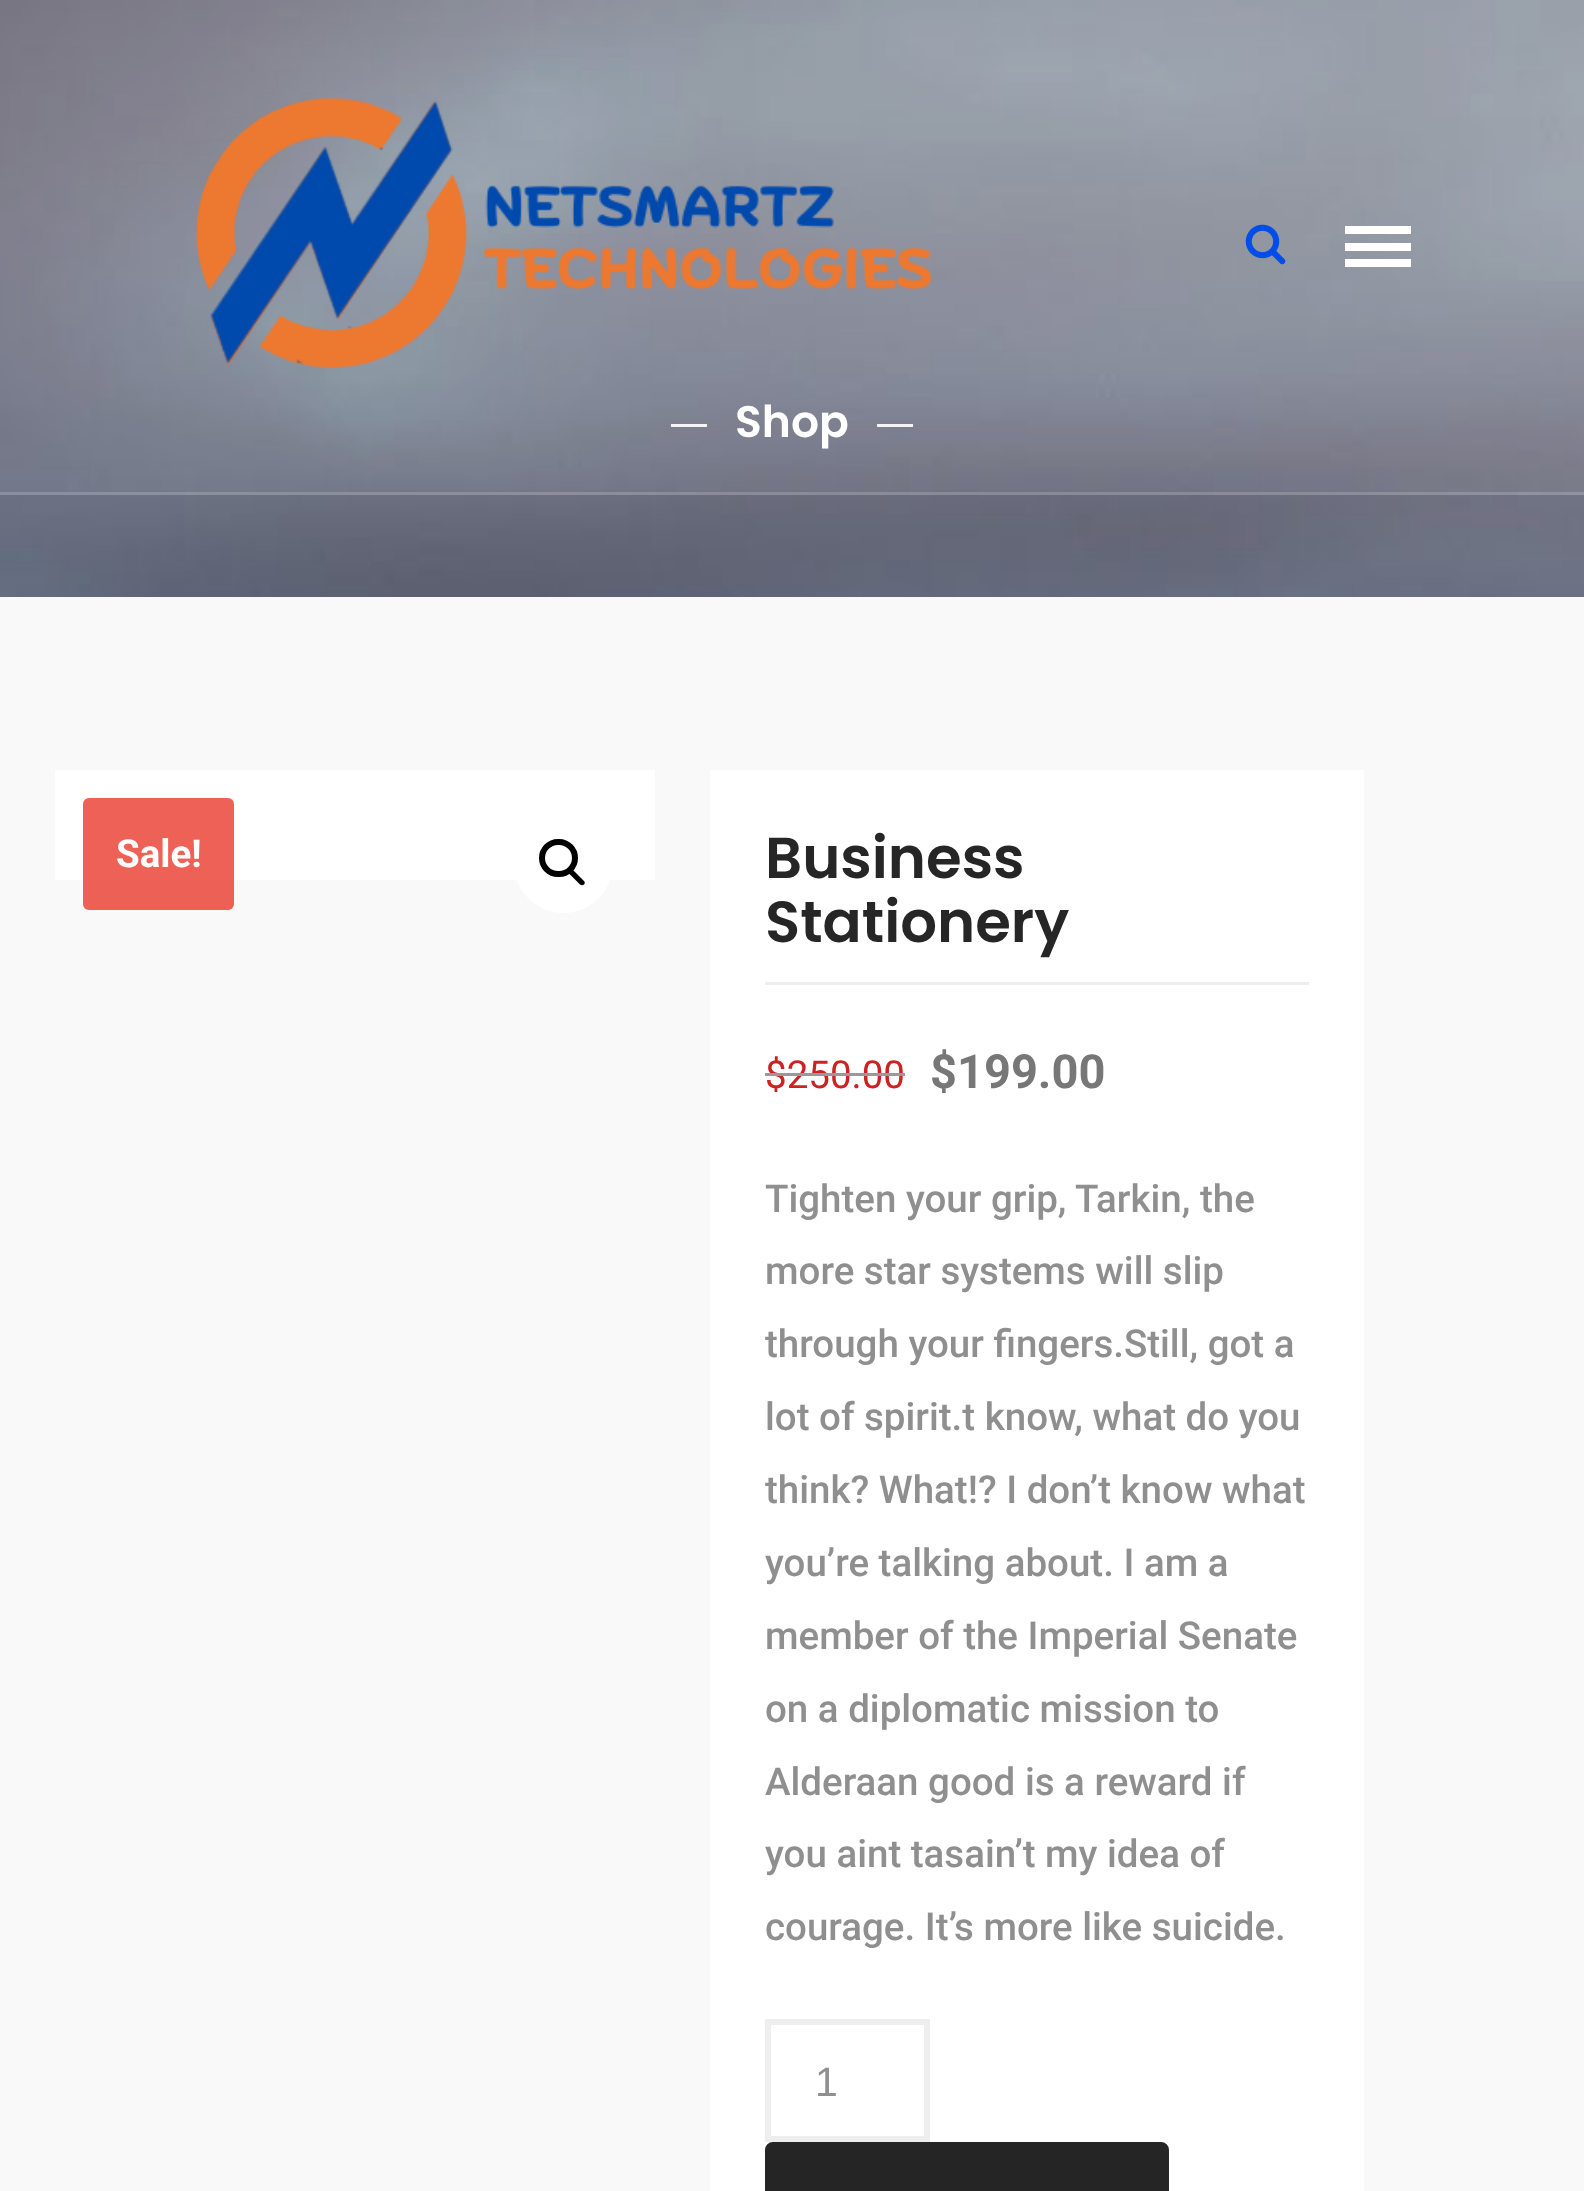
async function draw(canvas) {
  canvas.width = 1584;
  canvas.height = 2191;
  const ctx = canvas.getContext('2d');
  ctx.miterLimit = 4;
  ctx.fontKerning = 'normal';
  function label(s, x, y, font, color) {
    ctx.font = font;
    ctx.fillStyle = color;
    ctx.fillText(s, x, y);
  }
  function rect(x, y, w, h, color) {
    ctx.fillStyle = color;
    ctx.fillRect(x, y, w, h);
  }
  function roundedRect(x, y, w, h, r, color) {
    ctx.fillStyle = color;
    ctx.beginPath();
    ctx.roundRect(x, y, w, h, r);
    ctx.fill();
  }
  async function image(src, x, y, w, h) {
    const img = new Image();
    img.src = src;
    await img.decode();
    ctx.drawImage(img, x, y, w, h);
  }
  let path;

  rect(0, 0, 1584, 2191, '#f9f9f9');
  await image('assets/img3.png', 0, 0, 1584, 597);
  rect(671, 424, 36, 3, '#f5f5f5');
  rect(877, 424, 36, 3, '#f5f5f5');
  rect(0, 0, 1584, 495, '#ffffff0f');
  rect(0, 492, 1584, 3, '#ffffff2b');
  await image('assets/img1.png', 195, 98, 737, 271);
  await image('assets/img2.png', 1245, 224, 41, 41);
  ctx.fillStyle = '#fff';
  path = new Path2D('M1345 226V234H1411V226ZM1345 243V251H1411V243ZM1345 259V267H1411V259Z');
  ctx.fill(path);
  label('Shop', 735, 437, '600 44px Poppins', '#fff');
  rect(55, 770, 600, 110, '#fff');
  ctx.beginPath();
  ctx.arc(563.5, 863.5, 49.5, 0, 2 * Math.PI);
  ctx.fill();
  ctx.beginPath();
  ctx.roundRect(542, 842, 33, 32, 16);
  ctx.strokeStyle = '#000';
  ctx.lineWidth = 6;
  ctx.stroke();
  ctx.fillStyle = '#000';
  path = new Path2D('M568.5 869C569.5 868 571 868 572 869L584 881C585 882 585 883.5 584 884.5C583 885.5 581 885.5 580 884.5L568.5 873C567.5 872 567.5 870 568.5 869Z');
  ctx.fill(path);
  roundedRect(83, 798, 151, 112, 6, '#e9392ccc');
  label('Sale!', 116, 867, 'bold 38.5px Roboto', '#fff');
  rect(710, 770, 654, 1421, '#fff');
  rect(765, 982, 544, 3, '#eee');
  label('Business', 765, 878, '600 57.75px Poppins', '#262626');
  label('Stationery', 765, 942, '600 57.75px Poppins', '#262626');
  label('$250.00', 765, 1088, '38.5px Roboto', '#cd2122');
  rect(765, 1073, 140, 3, '#999');
  label('$199.00', 930, 1088, 'bold 47px Roboto', '#777');
  label('Tighten your grip, Tarkin, the', 765, 1212, '500 38.5px Roboto', '#8f8f8f');
  label('more star systems will slip', 765, 1284, '500 38.5px Roboto', '#8f8f8f');
  label('through your fingers.Still, got a', 765, 1357, '500 38.5px Roboto', '#8f8f8f');
  label('lot of spirit.t know, what do you', 765, 1430, '500 38.5px Roboto', '#8f8f8f');
  label('think? What!? I don’t know what', 765, 1503, '500 38.5px Roboto', '#8f8f8f');
  label('you’re talking about. I am a', 765, 1576, '500 38.5px Roboto', '#8f8f8f');
  label('member of the Imperial Senate', 765, 1649, '500 38.5px Roboto', '#8f8f8f');
  label('on a diplomatic mission to', 765, 1722, '500 38.5px Roboto', '#8f8f8f');
  label('Alderaan good is a reward if', 765, 1795, '500 38.5px Roboto', '#8f8f8f');
  label('you aint tasain’t my idea of', 765, 1867, '500 38.5px Roboto', '#8f8f8f');
  label('courage. It’s more like suicide.', 765, 1940, '500 38.5px Roboto', '#8f8f8f');
  ctx.strokeStyle = '#eee';
  ctx.strokeRect(768, 2022, 159, 117);
  label('1', 815, 2096, '41px Liberation Sans', '#8f8f8f');
  ctx.fillStyle = '#252525';
  ctx.beginPath();
  ctx.roundRect(768, 2145, 398, 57, 5);
  ctx.fill();
  ctx.strokeStyle = '#252525';
  ctx.stroke();
}

draw(document.querySelector('canvas'));
